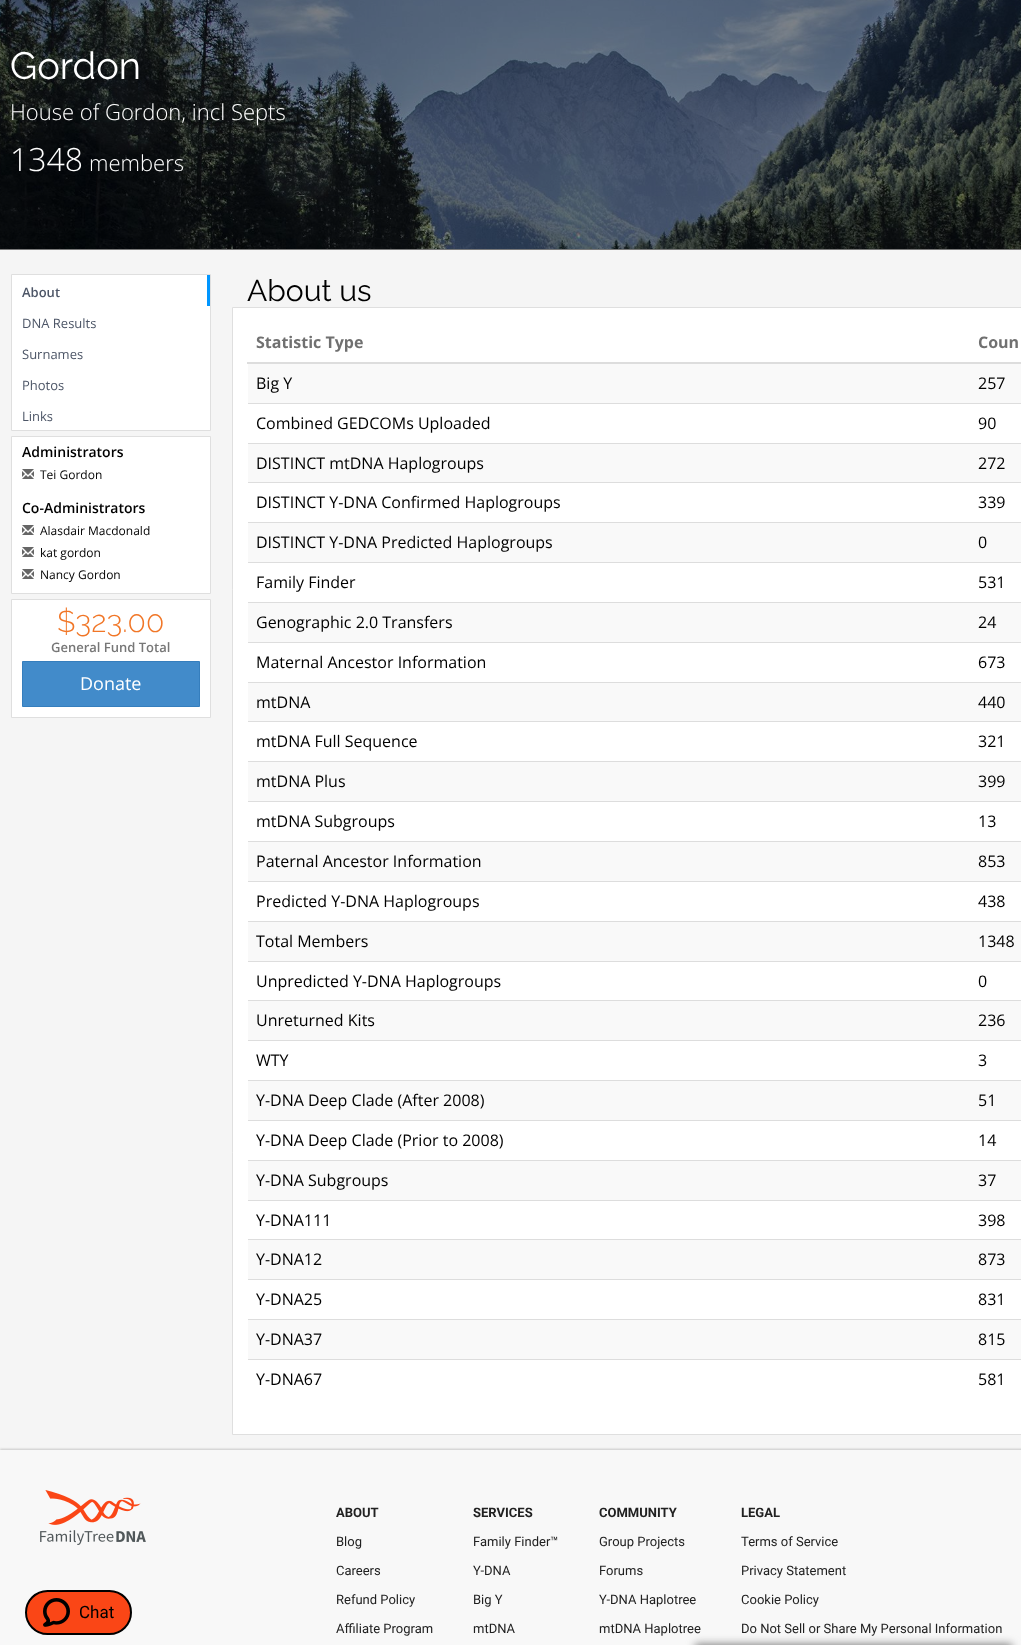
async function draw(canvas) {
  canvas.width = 1021;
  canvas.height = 1645;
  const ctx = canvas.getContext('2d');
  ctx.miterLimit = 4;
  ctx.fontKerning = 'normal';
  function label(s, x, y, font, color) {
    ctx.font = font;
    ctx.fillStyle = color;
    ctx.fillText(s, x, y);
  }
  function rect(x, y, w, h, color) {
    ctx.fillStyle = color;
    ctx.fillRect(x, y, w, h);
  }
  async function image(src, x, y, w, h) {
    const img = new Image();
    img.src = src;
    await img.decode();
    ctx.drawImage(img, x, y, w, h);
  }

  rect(0, 0, 1021, 1645, '#f5f5f5');
  await image('assets/img1.png', 0, 0, 1021, 249);
  rect(0, 249, 1021, 1, '#797979');
  label('Gordon', 10, 79, '38px Raleway', '#fff');
  label('House of Gordon, incl Septs', 10, 120, '300 22px Open Sans', '#fff');
  label('1348', 10, 171, '300 32px Open Sans', '#fff');
  label('members', 89, 171, '300 22px Open Sans', '#fff');
  ctx.beginPath();
  ctx.rect(11.5, 274.5, 199, 156);
  ctx.fill();
  ctx.strokeStyle = '#dfdfdf';
  ctx.stroke();
  rect(207, 275, 3, 31, '#0096ff');
  label('About', 22, 297, '600 13px Open Sans', '#4d5667');
  label('DNA Results', 22, 328, '13px Open Sans', '#4d5667');
  label('Surnames', 22, 359, '13px Open Sans', '#4d5667');
  label('Photos', 22, 390, '13px Open Sans', '#4d5667');
  label('Links', 22, 421, '13px Open Sans', '#4d5667');
  ctx.fillStyle = '#fff';
  ctx.beginPath();
  ctx.rect(11.5, 436.5, 199, 157);
  ctx.fill();
  ctx.stroke();
  label('Administrators', 22, 457, '600 14px Open Sans', '#000');
  await image('assets/img2.png', 22, 469, 12, 10);
  label('Tei Gordon', 40, 479, '12px Open Sans', '#000');
  label('Co-Administrators', 22, 513, '600 14px Open Sans', '#000');
  await image('assets/img2.png', 22, 525, 12, 10);
  label('Alasdair Macdonald', 40, 535, '12px Open Sans', '#000');
  await image('assets/img2.png', 22, 547, 12, 10);
  label('kat gordon', 40, 557, '12px Open Sans', '#000');
  await image('assets/img2.png', 22, 569, 12, 10);
  label('Nancy Gordon', 40, 579, '12px Open Sans', '#000');
  ctx.fillStyle = '#fff';
  ctx.beginPath();
  ctx.rect(11.5, 599.5, 199, 118);
  ctx.fill();
  ctx.stroke();
  label('$323.00', 57, 632, '300 30px Raleway', '#f17627');
  label('General Fund Total', 51, 652, '600 13px Open Sans', '#777');
  ctx.fillStyle = '#428bca';
  ctx.beginPath();
  ctx.rect(22.5, 661.5, 177, 45);
  ctx.fill();
  ctx.strokeStyle = '#357ebd';
  ctx.stroke();
  label('Donate', 80, 690, '18px Open Sans', '#fff');
  label('About us', 247, 301, '30px Raleway', '#000');
  ctx.fillStyle = '#fff';
  ctx.beginPath();
  ctx.rect(232.5, 307.5, 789, 1127);
  ctx.fill();
  ctx.strokeStyle = '#dfdfdf';
  ctx.stroke();
  label('Statistic Type', 256, 348, 'bold 16px Open Sans', '#707070');
  rect(247, 362, 774, 2, '#ddd');
  label('Coun', 978, 348, 'bold 16px Open Sans', '#707070');
  rect(248, 364, 773, 39, '#f9f9f9');
  label('Big Y', 256, 389, '16px Open Sans', '#000');
  label('257', 978, 389, '16px Open Sans', '#000');
  label('Combined GEDCOMs Uploaded', 256, 429, '16px Open Sans', '#000');
  rect(248, 403, 773, 1, '#ddd');
  label('90', 978, 429, '16px Open Sans', '#000');
  rect(248, 444, 773, 38, '#f9f9f9');
  label('DISTINCT mtDNA Haplogroups', 256, 469, '16px Open Sans', '#000');
  rect(248, 443, 773, 1, '#ddd');
  label('272', 978, 469, '16px Open Sans', '#000');
  label('DISTINCT Y-DNA Confirmed Haplogroups', 256, 508, '16px Open Sans', '#000');
  rect(248, 482, 773, 1, '#ddd');
  label('339', 978, 508, '16px Open Sans', '#000');
  rect(248, 523, 773, 39, '#f9f9f9');
  label('DISTINCT Y-DNA Predicted Haplogroups', 256, 548, '16px Open Sans', '#000');
  rect(248, 522, 773, 1, '#ddd');
  label('0', 978, 548, '16px Open Sans', '#000');
  label('Family Finder', 256, 588, '16px Open Sans', '#000');
  rect(248, 562, 773, 1, '#ddd');
  label('531', 978, 588, '16px Open Sans', '#000');
  rect(248, 603, 773, 39, '#f9f9f9');
  label('Genographic 2.0 Transfers', 256, 628, '16px Open Sans', '#000');
  rect(248, 602, 773, 1, '#ddd');
  label('24', 978, 628, '16px Open Sans', '#000');
  label('Maternal Ancestor Information', 256, 668, '16px Open Sans', '#000');
  rect(248, 642, 773, 1, '#ddd');
  label('673', 978, 668, '16px Open Sans', '#000');
  rect(248, 683, 773, 38, '#f9f9f9');
  label('mtDNA', 256, 708, '16px Open Sans', '#000');
  rect(248, 682, 773, 1, '#ddd');
  label('440', 978, 708, '16px Open Sans', '#000');
  label('mtDNA Full Sequence', 256, 747, '16px Open Sans', '#000');
  rect(248, 721, 773, 1, '#ddd');
  label('321', 978, 747, '16px Open Sans', '#000');
  rect(248, 762, 773, 39, '#f9f9f9');
  label('mtDNA Plus', 256, 787, '16px Open Sans', '#000');
  rect(248, 761, 773, 1, '#ddd');
  label('399', 978, 787, '16px Open Sans', '#000');
  label('mtDNA Subgroups', 256, 827, '16px Open Sans', '#000');
  rect(248, 801, 773, 1, '#ddd');
  label('13', 978, 827, '16px Open Sans', '#000');
  rect(248, 842, 773, 39, '#f9f9f9');
  label('Paternal Ancestor Information', 256, 867, '16px Open Sans', '#000');
  rect(248, 841, 773, 1, '#ddd');
  label('853', 978, 867, '16px Open Sans', '#000');
  label('Predicted Y-DNA Haplogroups', 256, 907, '16px Open Sans', '#000');
  rect(248, 881, 773, 1, '#ddd');
  label('438', 978, 907, '16px Open Sans', '#000');
  rect(248, 922, 773, 39, '#f9f9f9');
  label('Total Members', 256, 947, '16px Open Sans', '#000');
  rect(248, 921, 773, 1, '#ddd');
  label('1348', 978, 947, '16px Open Sans', '#000');
  label('Unpredicted Y-DNA Haplogroups', 256, 987, '16px Open Sans', '#000');
  rect(248, 961, 773, 1, '#ddd');
  label('0', 978, 987, '16px Open Sans', '#000');
  rect(248, 1001, 773, 39, '#f9f9f9');
  label('Unreturned Kits', 256, 1026, '16px Open Sans', '#000');
  rect(248, 1000, 773, 1, '#ddd');
  label('236', 978, 1026, '16px Open Sans', '#000');
  label('WTY', 256, 1066, '16px Open Sans', '#000');
  rect(248, 1040, 773, 1, '#ddd');
  label('3', 978, 1066, '16px Open Sans', '#000');
  rect(248, 1081, 773, 39, '#f9f9f9');
  label('Y-DNA Deep Clade (After 2008)', 256, 1106, '16px Open Sans', '#000');
  rect(248, 1080, 773, 1, '#ddd');
  label('51', 978, 1106, '16px Open Sans', '#000');
  label('Y-DNA Deep Clade (Prior to 2008)', 256, 1146, '16px Open Sans', '#000');
  rect(248, 1120, 773, 1, '#ddd');
  label('14', 978, 1146, '16px Open Sans', '#000');
  rect(248, 1161, 773, 39, '#f9f9f9');
  label('Y-DNA Subgroups', 256, 1186, '16px Open Sans', '#000');
  rect(248, 1160, 773, 1, '#ddd');
  label('37', 978, 1186, '16px Open Sans', '#000');
  label('Y-DNA111', 256, 1226, '16px Open Sans', '#000');
  rect(248, 1200, 773, 1, '#ddd');
  label('398', 978, 1226, '16px Open Sans', '#000');
  rect(248, 1240, 773, 39, '#f9f9f9');
  label('Y-DNA12', 256, 1265, '16px Open Sans', '#000');
  rect(248, 1239, 773, 1, '#ddd');
  label('873', 978, 1265, '16px Open Sans', '#000');
  label('Y-DNA25', 256, 1305, '16px Open Sans', '#000');
  rect(248, 1279, 773, 1, '#ddd');
  label('831', 978, 1305, '16px Open Sans', '#000');
  rect(248, 1320, 773, 39, '#f9f9f9');
  label('Y-DNA37', 256, 1345, '16px Open Sans', '#000');
  rect(248, 1319, 773, 1, '#ddd');
  label('815', 978, 1345, '16px Open Sans', '#000');
  label('Y-DNA67', 256, 1385, '16px Open Sans', '#000');
  rect(248, 1359, 773, 1, '#ddd');
  label('581', 978, 1385, '16px Open Sans', '#000');
  ctx.fillStyle = '#21212136';
  ctx.filter = 'blur(1px)';
  ctx.beginPath();
  ctx.rect(0, 1449, 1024, 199);
  ctx.fill();
  ctx.filter = 'none';
  rect(0, 1450, 1021, 195, '#f8f8f8');
  ctx.fillStyle = '#fa4616';
  ctx.beginPath();
  ctx.roundRect(26, 1591, 105, 43, 21.5);
  ctx.fill();
  ctx.strokeStyle = '#000';
  ctx.lineWidth = 2;
  ctx.stroke();
  await image('assets/img3.png', 43, 1598, 27, 29);
  label('Chat', 79, 1618, '17px Roboto', '#000');
  await image('assets/img4.png', 40, 1490, 106, 55);
  label('ABOUT', 336, 1517, 'bold 13px Roboto', '#212121');
  label('Blog', 336, 1546, '13px Roboto', '#212121');
  label('Careers', 336, 1575, '13px Roboto', '#212121');
  label('Refund Policy', 336, 1604, '13px Roboto', '#212121');
  label('Affiliate Program', 336, 1633, '13px Roboto', '#212121');
  label('SERVICES', 473, 1517, 'bold 13px Roboto', '#212121');
  label('Family Finder™', 473, 1546, '13px Roboto', '#212121');
  label('Y-DNA', 473, 1575, '13px Roboto', '#212121');
  label('Big Y', 473, 1604, '13px Roboto', '#212121');
  label('mtDNA', 473, 1633, '13px Roboto', '#212121');
  label('COMMUNITY', 599, 1517, 'bold 13px Roboto', '#212121');
  label('Group Projects', 599, 1546, '13px Roboto', '#212121');
  label('Forums', 599, 1575, '13px Roboto', '#212121');
  label('Y-DNA Haplotree', 599, 1604, '13px Roboto', '#212121');
  label('mtDNA Haplotree', 599, 1633, '13px Roboto', '#212121');
  label('LEGAL', 741, 1517, 'bold 13px Roboto', '#212121');
  label('Terms of Service', 741, 1546, '13px Roboto', '#212121');
  label('Privacy Statement', 741, 1575, '13px Roboto', '#212121');
  label('Cookie Policy', 741, 1604, '13px Roboto', '#212121');
  label('Do Not Sell or Share My Personal Information', 741, 1633, '13px Roboto', '#212121');
  ctx.fillStyle = '#808080';
  ctx.filter = 'blur(4px)';
  ctx.beginPath();
  ctx.rect(695, 1644, 317, 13);
  ctx.fill();
  ctx.filter = 'none';
}

draw(document.querySelector('canvas'));
